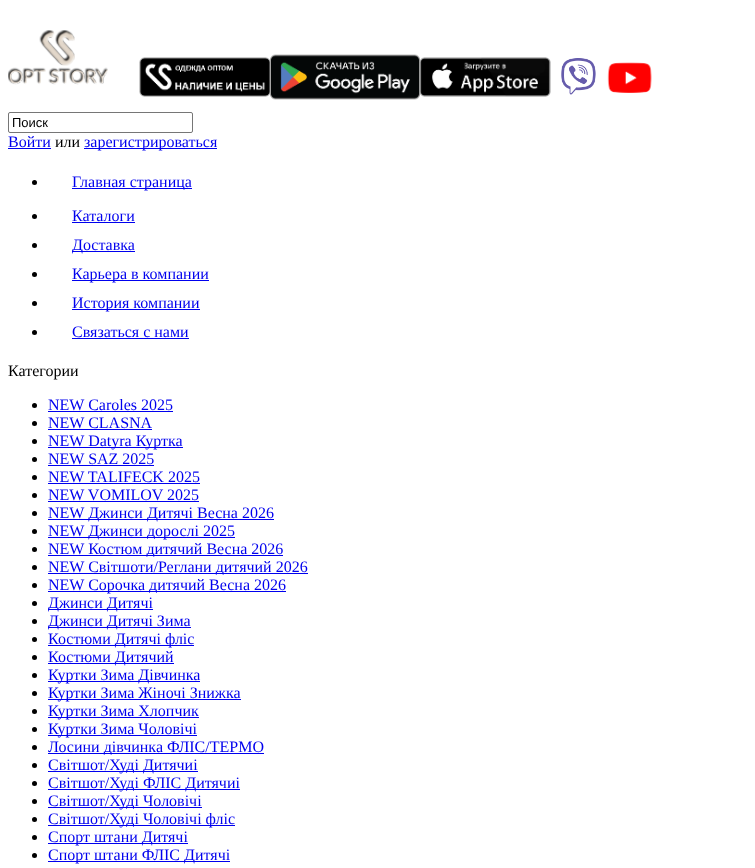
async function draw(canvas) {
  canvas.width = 755;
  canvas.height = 868;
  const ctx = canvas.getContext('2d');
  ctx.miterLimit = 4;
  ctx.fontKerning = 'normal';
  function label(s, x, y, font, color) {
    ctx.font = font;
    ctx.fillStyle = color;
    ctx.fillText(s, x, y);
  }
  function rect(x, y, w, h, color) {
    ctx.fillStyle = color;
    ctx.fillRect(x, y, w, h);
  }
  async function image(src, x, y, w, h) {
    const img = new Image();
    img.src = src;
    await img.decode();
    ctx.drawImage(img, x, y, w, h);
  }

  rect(0, 0, 755, 868, '#fff');
  await image('assets/img1.png', 8, 30, 100, 55);
  await image('assets/img2.png', 139, 57, 131, 40);
  await image('assets/img3.png', 270, 54, 150, 46);
  await image('assets/img4.png', 419, 57, 132, 40);
  await image('assets/img5.png', 561, 58, 35, 37);
  await image('assets/img6.png', 607, 62, 45, 31);
  ctx.beginPath();
  ctx.roundRect(8.5, 112.5, 184, 20, 1.5);
  ctx.strokeStyle = '#767676';
  ctx.stroke();
  label('Поиск', 12, 127, '13px Liberation Sans', '#000');
  label('Войти', 8, 147, '16px Liberation Serif', '#00e');
  rect(8, 148, 43, 1, '#00e');
  label('или', 55, 147, '16px Liberation Serif', '#000');
  rect(84, 148, 133, 1, '#00e');
  label('зарегистрироваться', 84, 147, '16px Liberation Serif', '#00e');
  ctx.fillStyle = '#000';
  ctx.beginPath();
  ctx.arc(34.5, 182.5, 2.5, 0, 2 * Math.PI);
  ctx.fill();
  rect(72, 188, 120, 1, '#00e');
  label('Главная страница', 72, 187, '16px Liberation Serif', '#00e');
  ctx.fillStyle = '#000';
  ctx.beginPath();
  ctx.arc(34.5, 216.5, 2.5, 0, 2 * Math.PI);
  ctx.fill();
  label('Каталоги', 72, 221, '16px Liberation Serif', '#00e');
  rect(72, 222, 63, 1, '#00e');
  ctx.fillStyle = '#000';
  ctx.beginPath();
  ctx.arc(34.5, 245.5, 2.5, 0, 2 * Math.PI);
  ctx.fill();
  rect(72, 251, 63, 1, '#00e');
  label('Доставка', 72, 250, '16px Liberation Serif', '#00e');
  ctx.fillStyle = '#000';
  ctx.beginPath();
  ctx.arc(34.5, 274.5, 2.5, 0, 2 * Math.PI);
  ctx.fill();
  rect(72, 280, 137, 1, '#00e');
  label('Карьера в компании', 72, 279, '16px Liberation Serif', '#00e');
  ctx.fillStyle = '#000';
  ctx.beginPath();
  ctx.arc(34.5, 303.5, 2.5, 0, 2 * Math.PI);
  ctx.fill();
  rect(72, 309, 128, 1, '#00e');
  label('История компании', 72, 308, '16px Liberation Serif', '#00e');
  ctx.fillStyle = '#000';
  ctx.beginPath();
  ctx.arc(34.5, 332.5, 2.5, 0, 2 * Math.PI);
  ctx.fill();
  label('Связаться с нами', 72, 337, '16px Liberation Serif', '#00e');
  rect(72, 338, 117, 1, '#00e');
  label('Категории', 8, 376, '16px Liberation Serif', '#000');
  ctx.beginPath();
  ctx.arc(34.5, 405.5, 2.5, 0, 2 * Math.PI);
  ctx.fill();
  label('NEW Caroles 2025', 48, 410, '16px Liberation Serif', '#00e');
  rect(48, 411, 125, 1, '#00e');
  ctx.fillStyle = '#000';
  ctx.beginPath();
  ctx.arc(34.5, 423.5, 2.5, 0, 2 * Math.PI);
  ctx.fill();
  label('NEW CLASNA', 48, 428, '16px Liberation Serif', '#00e');
  rect(48, 429, 104, 1, '#00e');
  ctx.fillStyle = '#000';
  ctx.beginPath();
  ctx.arc(34.5, 441.5, 2.5, 0, 2 * Math.PI);
  ctx.fill();
  rect(48, 447, 135, 1, '#00e');
  label('NEW Datyra Куртка', 48, 446, '16px Liberation Serif', '#00e');
  ctx.fillStyle = '#000';
  ctx.beginPath();
  ctx.arc(34.5, 459.5, 2.5, 0, 2 * Math.PI);
  ctx.fill();
  label('NEW SAZ 2025', 48, 464, '16px Liberation Serif', '#00e');
  rect(48, 465, 106, 1, '#00e');
  ctx.fillStyle = '#000';
  ctx.beginPath();
  ctx.arc(34.5, 477.5, 2.5, 0, 2 * Math.PI);
  ctx.fill();
  label('NEW TALIFECK 2025', 48, 482, '16px Liberation Serif', '#00e');
  rect(48, 483, 152, 1, '#00e');
  ctx.fillStyle = '#000';
  ctx.beginPath();
  ctx.arc(34.5, 495.5, 2.5, 0, 2 * Math.PI);
  ctx.fill();
  label('NEW VOMILOV 2025', 48, 500, '16px Liberation Serif', '#00e');
  rect(48, 501, 151, 1, '#00e');
  ctx.fillStyle = '#000';
  ctx.beginPath();
  ctx.arc(34.5, 513.5, 2.5, 0, 2 * Math.PI);
  ctx.fill();
  rect(48, 519, 226, 1, '#00e');
  label('NEW Джинси Дитячі Весна 2026', 48, 518, '16px Liberation Serif', '#00e');
  ctx.fillStyle = '#000';
  ctx.beginPath();
  ctx.arc(34.5, 531.5, 2.5, 0, 2 * Math.PI);
  ctx.fill();
  rect(48, 537, 187, 1, '#00e');
  label('NEW Джинси дорослі 2025', 48, 536, '16px Liberation Serif', '#00e');
  ctx.fillStyle = '#000';
  ctx.beginPath();
  ctx.arc(34.5, 549.5, 2.5, 0, 2 * Math.PI);
  ctx.fill();
  rect(48, 555, 235, 1, '#00e');
  label('NEW Костюм дитячий Весна 2026', 48, 554, '16px Liberation Serif', '#00e');
  ctx.fillStyle = '#000';
  ctx.beginPath();
  ctx.arc(34.5, 567.5, 2.5, 0, 2 * Math.PI);
  ctx.fill();
  rect(48, 573, 260, 1, '#00e');
  label('NEW Світшоти/Реглани дитячий 2026', 48, 572, '16px Liberation Serif', '#00e');
  ctx.fillStyle = '#000';
  ctx.beginPath();
  ctx.arc(34.5, 585.5, 2.5, 0, 2 * Math.PI);
  ctx.fill();
  rect(48, 591, 238, 1, '#00e');
  label('NEW Сорочка дитячий Весна 2026', 48, 590, '16px Liberation Serif', '#00e');
  ctx.fillStyle = '#000';
  ctx.beginPath();
  ctx.arc(34.5, 603.5, 2.5, 0, 2 * Math.PI);
  ctx.fill();
  rect(48, 609, 105, 1, '#00e');
  label('Джинси Дитячі', 48, 608, '16px Liberation Serif', '#00e');
  ctx.fillStyle = '#000';
  ctx.beginPath();
  ctx.arc(34.5, 621.5, 2.5, 0, 2 * Math.PI);
  ctx.fill();
  rect(48, 627, 143, 1, '#00e');
  label('Джинси Дитячі Зима', 48, 626, '16px Liberation Serif', '#00e');
  ctx.fillStyle = '#000';
  ctx.beginPath();
  ctx.arc(34.5, 639.5, 2.5, 0, 2 * Math.PI);
  ctx.fill();
  rect(48, 645, 146, 1, '#00e');
  label('Костюми Дитячі фліс', 48, 644, '16px Liberation Serif', '#00e');
  ctx.fillStyle = '#000';
  ctx.beginPath();
  ctx.arc(34.5, 657.5, 2.5, 0, 2 * Math.PI);
  ctx.fill();
  rect(48, 663, 126, 1, '#00e');
  label('Костюми Дитячий', 48, 662, '16px Liberation Serif', '#00e');
  ctx.fillStyle = '#000';
  ctx.beginPath();
  ctx.arc(34.5, 675.5, 2.5, 0, 2 * Math.PI);
  ctx.fill();
  rect(48, 681, 152, 1, '#00e');
  label('Куртки Зима Дівчинка', 48, 680, '16px Liberation Serif', '#00e');
  ctx.fillStyle = '#000';
  ctx.beginPath();
  ctx.arc(34.5, 693.5, 2.5, 0, 2 * Math.PI);
  ctx.fill();
  rect(48, 699, 193, 1, '#00e');
  label('Куртки Зима Жіночі Знижка', 48, 698, '16px Liberation Serif', '#00e');
  ctx.fillStyle = '#000';
  ctx.beginPath();
  ctx.arc(34.5, 711.5, 2.5, 0, 2 * Math.PI);
  ctx.fill();
  rect(48, 717, 151, 1, '#00e');
  label('Куртки Зима Хлопчик', 48, 716, '16px Liberation Serif', '#00e');
  ctx.fillStyle = '#000';
  ctx.beginPath();
  ctx.arc(34.5, 729.5, 2.5, 0, 2 * Math.PI);
  ctx.fill();
  rect(48, 735, 149, 1, '#00e');
  label('Куртки Зима Чоловічі', 48, 734, '16px Liberation Serif', '#00e');
  ctx.fillStyle = '#000';
  ctx.beginPath();
  ctx.arc(34.5, 747.5, 2.5, 0, 2 * Math.PI);
  ctx.fill();
  rect(48, 753, 216, 1, '#00e');
  label('Лосини дівчинка ФЛІС/ТЕРМО', 48, 752, '16px Liberation Serif', '#00e');
  ctx.fillStyle = '#000';
  ctx.beginPath();
  ctx.arc(34.5, 765.5, 2.5, 0, 2 * Math.PI);
  ctx.fill();
  rect(48, 771, 150, 1, '#00e');
  label('Світшот/Худі Дитячиі', 48, 770, '16px Liberation Serif', '#00e');
  ctx.fillStyle = '#000';
  ctx.beginPath();
  ctx.arc(34.5, 783.5, 2.5, 0, 2 * Math.PI);
  ctx.fill();
  rect(48, 789, 192, 1, '#00e');
  label('Світшот/Худі ФЛІС Дитячиі', 48, 788, '16px Liberation Serif', '#00e');
  ctx.fillStyle = '#000';
  ctx.beginPath();
  ctx.arc(34.5, 801.5, 2.5, 0, 2 * Math.PI);
  ctx.fill();
  rect(48, 807, 154, 1, '#00e');
  label('Світшот/Худі Чоловічі', 48, 806, '16px Liberation Serif', '#00e');
  ctx.fillStyle = '#000';
  ctx.beginPath();
  ctx.arc(34.5, 819.5, 2.5, 0, 2 * Math.PI);
  ctx.fill();
  rect(48, 825, 187, 1, '#00e');
  label('Світшот/Худі Чоловічі фліс', 48, 824, '16px Liberation Serif', '#00e');
  ctx.fillStyle = '#000';
  ctx.beginPath();
  ctx.arc(34.5, 837.5, 2.5, 0, 2 * Math.PI);
  ctx.fill();
  rect(48, 843, 140, 1, '#00e');
  label('Спорт штани Дитячі', 48, 842, '16px Liberation Serif', '#00e');
  ctx.fillStyle = '#000';
  ctx.beginPath();
  ctx.arc(34.5, 855.5, 2.5, 0, 2 * Math.PI);
  ctx.fill();
  rect(48, 861, 182, 1, '#00e');
  label('Спорт штани ФЛІС Дитячі', 48, 860, '16px Liberation Serif', '#00e');
}

draw(document.querySelector('canvas'));
